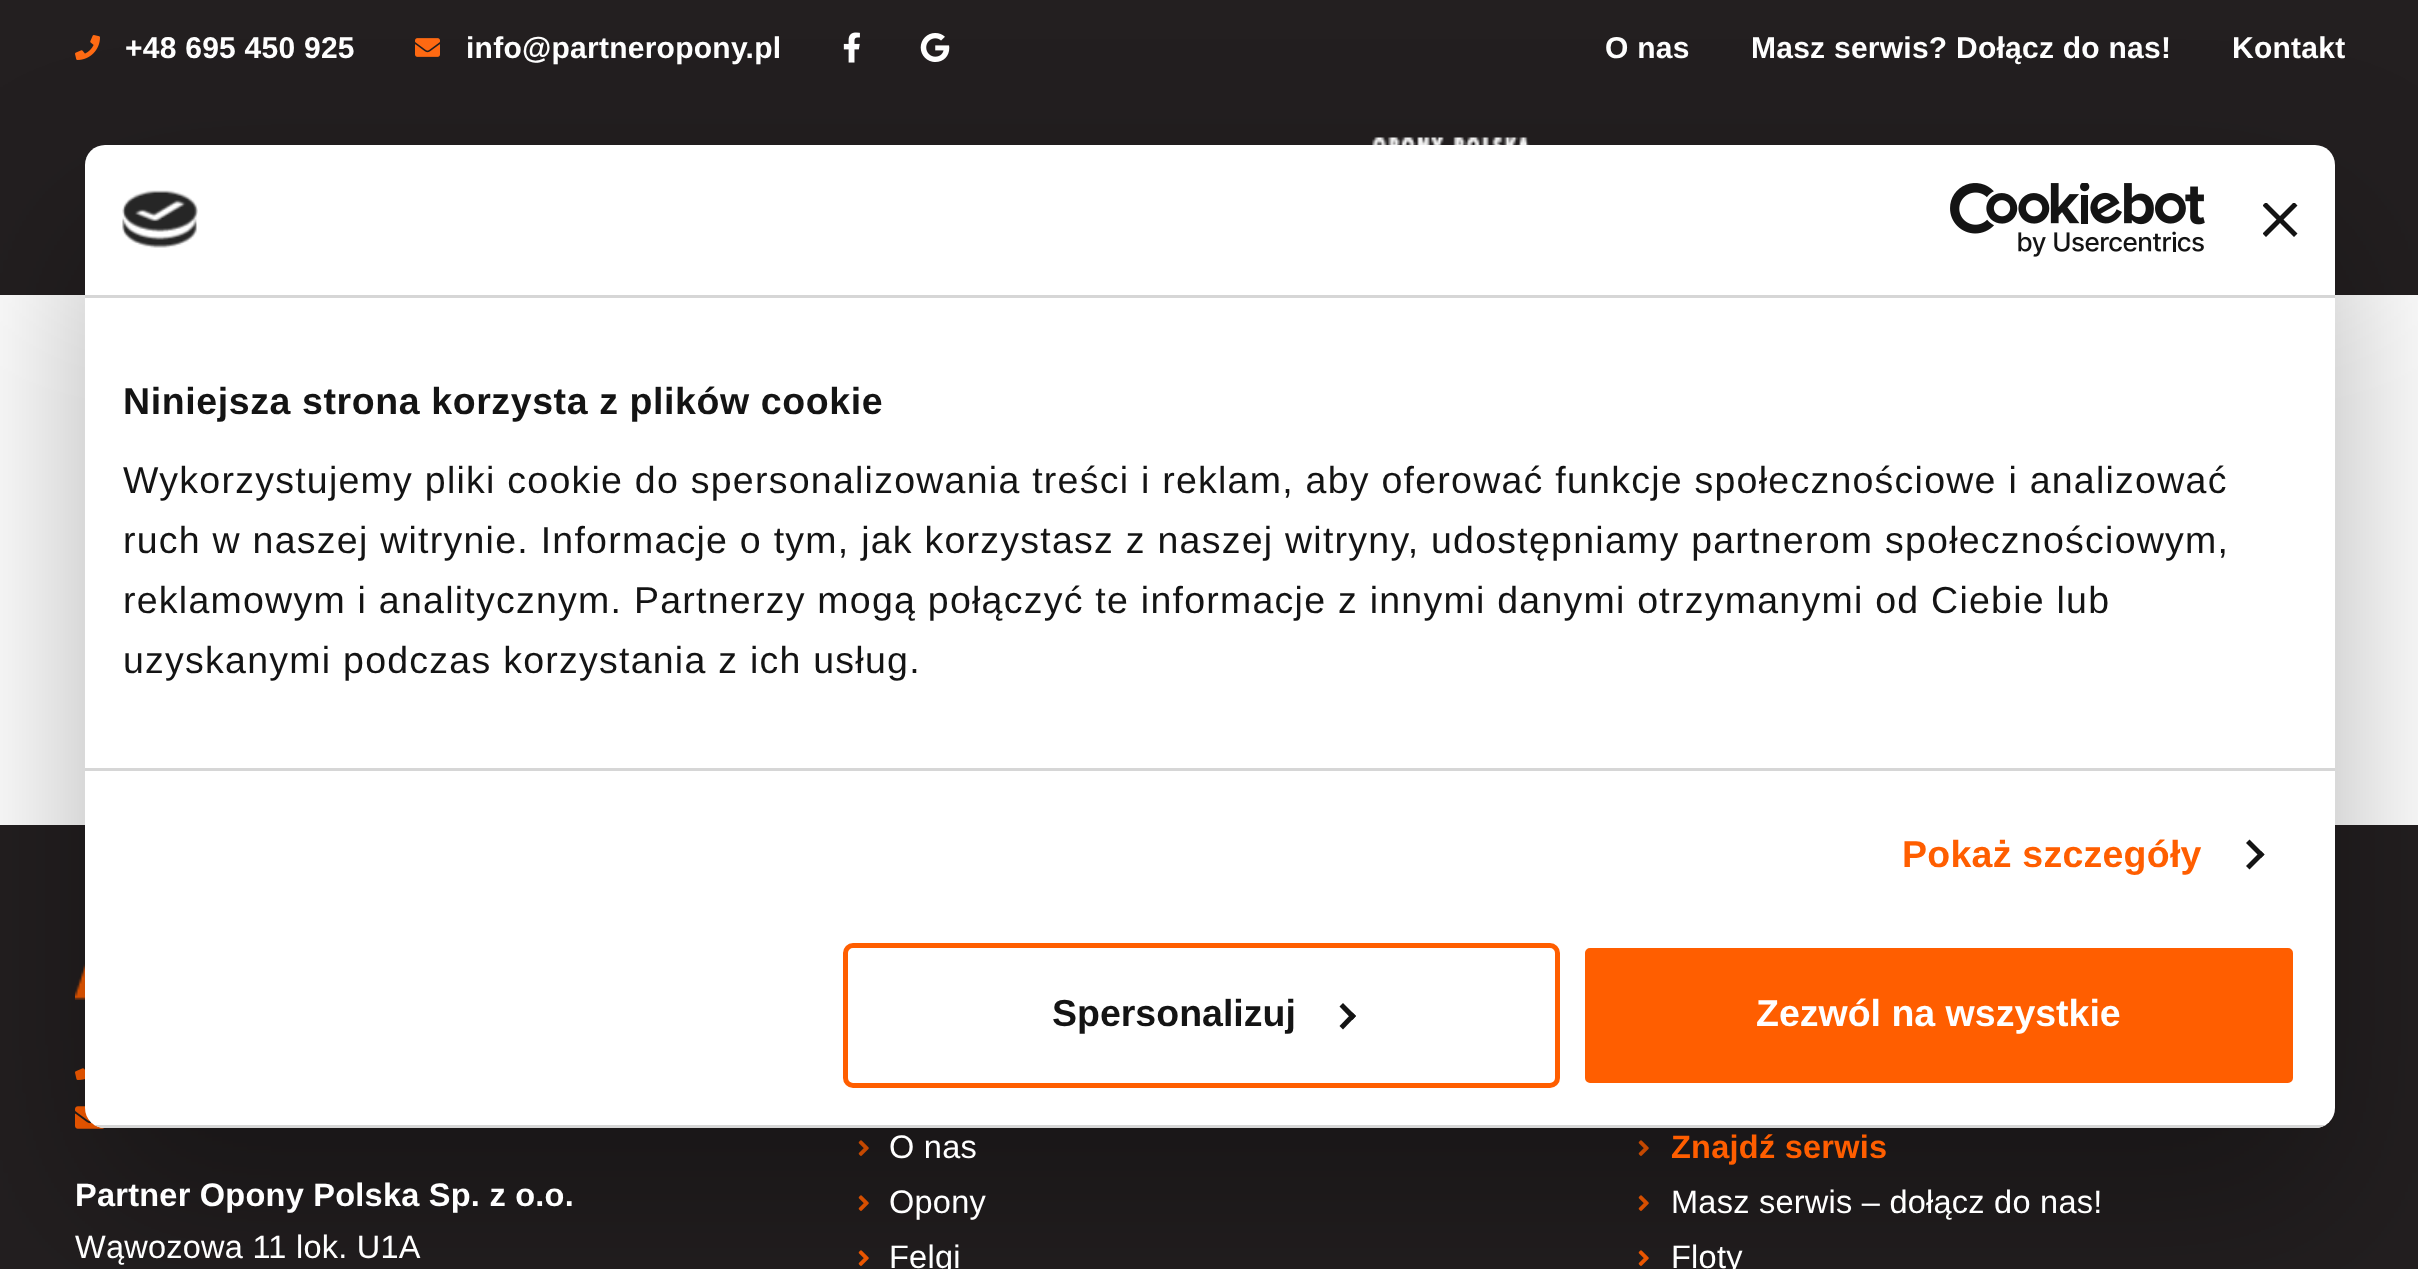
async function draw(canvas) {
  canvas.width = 2418;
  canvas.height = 1269;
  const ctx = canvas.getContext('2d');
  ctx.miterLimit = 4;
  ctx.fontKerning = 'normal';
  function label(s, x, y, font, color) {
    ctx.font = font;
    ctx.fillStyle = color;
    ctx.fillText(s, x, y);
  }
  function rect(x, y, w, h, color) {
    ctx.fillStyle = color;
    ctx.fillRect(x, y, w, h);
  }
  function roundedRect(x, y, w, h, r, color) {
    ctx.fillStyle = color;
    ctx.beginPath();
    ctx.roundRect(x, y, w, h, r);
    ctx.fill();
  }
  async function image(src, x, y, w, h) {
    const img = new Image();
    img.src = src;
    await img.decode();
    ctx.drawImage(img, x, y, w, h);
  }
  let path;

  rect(0, 0, 2418, 1269, '#fff');
  rect(0, 0, 2418, 295, '#231f20');
  await image('assets/img1.png', 75, 35, 25, 25);
  ctx.letterSpacing = '0.25px';
  label('+48 695 450 925', 125, 58, 'bold 30px Liberation Sans', '#fff');
  await image('assets/img2.png', 415, 38, 25, 19);
  label('info@partneropony.pl', 466, 58, 'bold 30px Liberation Sans', '#fff');
  await image('assets/img3.png', 843, 32, 17, 31);
  await image('assets/img4.png', 920, 33, 30, 29);
  label('O nas', 1605, 58, 'bold 30px Liberation Sans', '#fff');
  label('Masz serwis? Dołącz do nas!', 1751, 58, 'bold 30px Liberation Sans', '#fff');
  label('Kontakt', 2232, 58, 'bold 30px Liberation Sans', '#fff');
  await image('assets/img5.png', 1372, 137, 158, 8);
  rect(0, 825, 2418, 444, '#231f20');
  await image('assets/img8.png', 75, 964, 10, 36);
  await image('assets/img9.png', 75, 1068, 10, 12);
  await image('assets/img10.png', 75, 1106, 30, 23);
  await image('assets/img11.png', 858, 1140, 11, 16);
  await image('assets/img11.png', 858, 1195, 11, 16);
  await image('assets/img11.png', 858, 1250, 11, 16);
  await image('assets/img11.png', 1638, 1140, 11, 16);
  await image('assets/img11.png', 1638, 1195, 11, 16);
  await image('assets/img11.png', 1638, 1250, 11, 16);
  ctx.fillStyle = '#0000004d';
  ctx.filter = 'blur(85px)';
  ctx.beginPath();
  ctx.roundRect(85, 225, 2250, 983, 20);
  ctx.fill();
  ctx.filter = 'none';
  roundedRect(85, 145, 2250, 983, 20, '#fff');
  rect(85, 295, 2250, 3, '#d6d6d6');
  await image('assets/img6.png', 122, 190, 76, 58);
  await image('assets/img7.png', 1950, 183, 255, 74);
  ctx.save();
  ctx.beginPath();
  ctx.rect(2263, 203, 35, 35);
  ctx.clip();
  ctx.fillStyle = '#141414';
  path = new Path2D('M2297.5 205.5L2294 202L2280 216L2266 202L2262.5 205.5L2276.5 219.5L2262.5 233.5L2266 237L2280 223L2294 237L2297.5 233.5L2283.5 219.5Z');
  ctx.fill(path);
  ctx.restore();
  rect(85, 768, 2250, 3, '#d6d6d6');
  ctx.letterSpacing = '0.6px';
  label('Niniejsza strona korzysta z plików cookie', 123, 414, 'bold 37.5px Liberation Sans', '#141414');
  ctx.letterSpacing = '1.25px';
  label('Wykorzystujemy pliki cookie do spersonalizowania treści i reklam, aby oferować funkcje społecznościowe i analizować', 123, 493, '37.5px Liberation Sans', '#141414');
  label('ruch w naszej witrynie. Informacje o tym, jak korzystasz z naszej witryny, udostępniamy partnerom społecznościowym,', 123, 553, '37.5px Liberation Sans', '#141414');
  label('reklamowym i analitycznym. Partnerzy mogą połączyć te informacje z innymi danymi otrzymanymi od Ciebie lub', 123, 613, '37.5px Liberation Sans', '#141414');
  label('uzyskanymi podczas korzystania z ich usług.', 123, 673, '37.5px Liberation Sans', '#141414');
  ctx.letterSpacing = '0.25px';
  label('Pokaż szczegóły', 1902, 867, 'bold 37.5px Liberation Sans', '#ff5e00');
  ctx.fillStyle = '#141414';
  path = new Path2D('M2249.5 839.5L2264.5 854.5L2261 858L2246 843Z');
  ctx.fill(path);
  path = new Path2D('M2261 851L2264.5 854.5L2249.5 869.5L2246 866Z');
  ctx.fill(path);
  ctx.save();
  ctx.beginPath();
  ctx.roundRect(85, 145, 2250, 983, 20);
  ctx.clip();
  rect(94, 1125, 2232, 3, '#d6d6d6');
  ctx.restore();
  ctx.beginPath();
  ctx.roundRect(845.5, 945.5, 712, 140, 7.5);
  ctx.strokeStyle = '#ff5e00';
  ctx.lineWidth = 5;
  ctx.stroke();
  ctx.letterSpacing = '0px';
  label('Spersonalizuj', 1052, 1026, 'bold 37.5px Liberation Sans', '#141414');
  path = new Path2D('M1343 1003L1356 1016L1352.5 1020L1339.5 1006.5Z');
  ctx.fill(path);
  path = new Path2D('M1352.5 1012.5L1356 1016L1343 1029.5L1339.5 1026Z');
  ctx.fill(path);
  ctx.fillStyle = '#ff5e00';
  ctx.beginPath();
  ctx.roundRect(1582.5, 945.5, 713, 140, 7.5);
  ctx.fill();
  ctx.strokeStyle = '#fff';
  ctx.stroke();
  label('Zezwól na wszystkie', 1756, 1026, 'bold 37.5px Liberation Sans', '#fff');
  ctx.letterSpacing = '0.25px';
  label('Partner Opony Polska Sp. z o.o.', 75, 1206, 'bold 32.5px Liberation Sans', '#fff');
  label('Wąwozowa 11 lok. U1A', 75, 1258, '32.5px Liberation Sans', '#fff');
  label('O nas', 889, 1158, '32.5px Liberation Sans', '#fff');
  label('Opony', 889, 1213, '32.5px Liberation Sans', '#fff');
  label('Felgi', 889, 1268, '32.5px Liberation Sans', '#fff');
  label('Znajdź serwis', 1671, 1158, 'bold 32.5px Liberation Sans', '#ff5e00');
  label('Masz serwis – dołącz do nas!', 1671, 1213, '32.5px Liberation Sans', '#fff');
  label('Floty', 1671, 1268, '32.5px Liberation Sans', '#fff');
}

draw(document.querySelector('canvas'));
